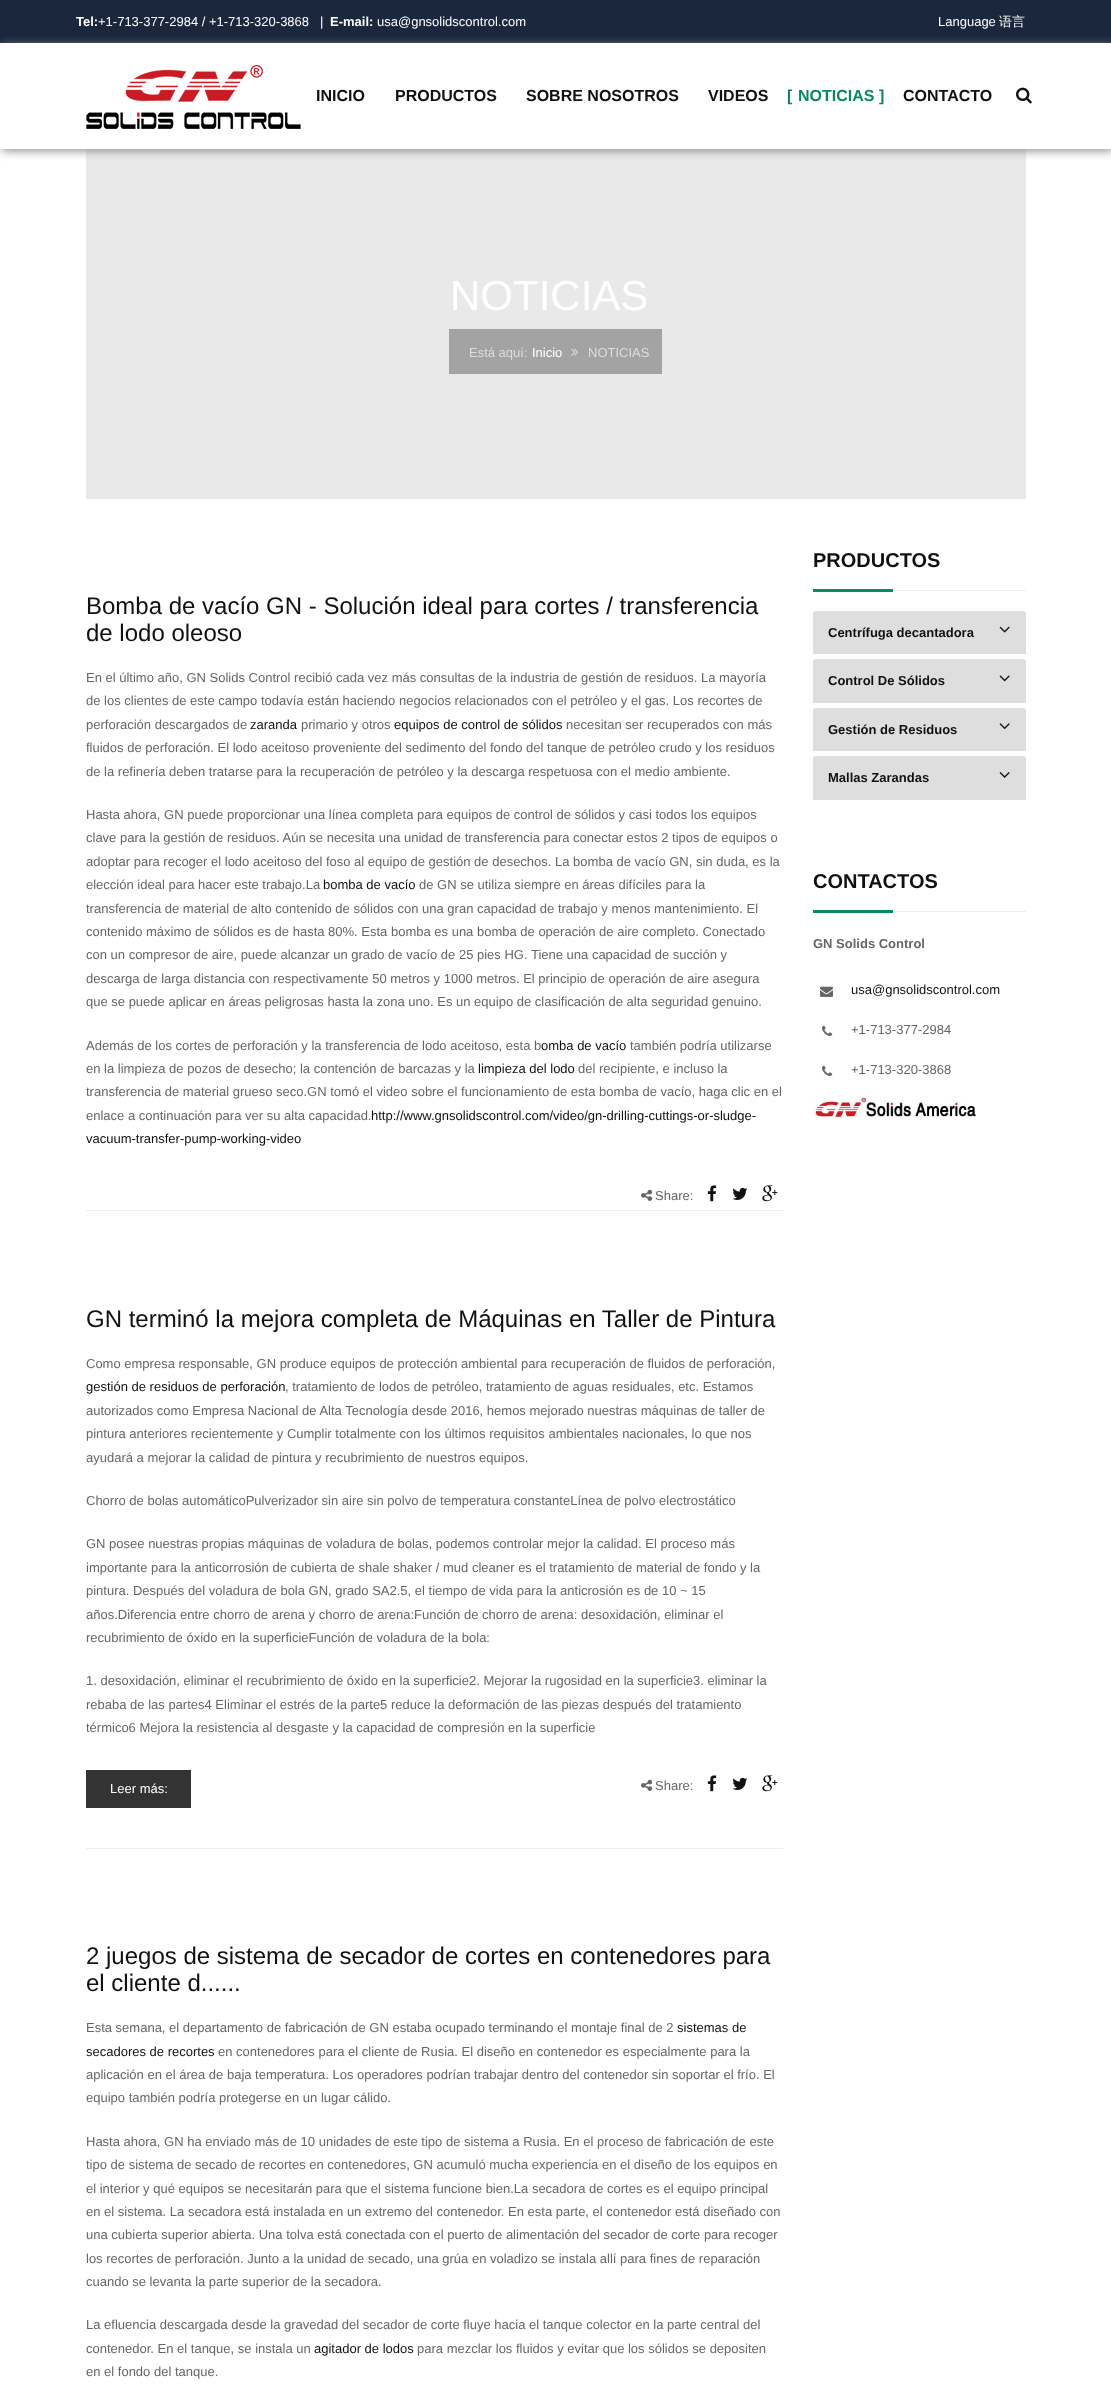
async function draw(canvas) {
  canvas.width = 1111;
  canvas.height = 2386;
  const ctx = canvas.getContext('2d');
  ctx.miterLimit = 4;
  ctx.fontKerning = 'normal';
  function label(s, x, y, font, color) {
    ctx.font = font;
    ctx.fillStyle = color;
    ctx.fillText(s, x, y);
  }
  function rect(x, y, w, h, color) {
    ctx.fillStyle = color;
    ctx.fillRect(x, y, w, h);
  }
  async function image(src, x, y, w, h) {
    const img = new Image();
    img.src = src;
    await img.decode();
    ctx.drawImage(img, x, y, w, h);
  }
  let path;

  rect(0, 0, 1111, 2386, '#fff');
  rect(0, 0, 1111, 43, '#1b273d');
  label('Tel:', 76, 26, 'bold 13px Liberation Sans', '#fff');
  label('+1-713-377-2984 / +1-713-320-3868', 98, 26, '13px Liberation Sans', '#fff');
  label('|', 320, 26, '13px Liberation Sans', '#fff');
  label('E-mail:', 330, 26, 'bold 13px Liberation Sans', '#fff');
  label('usa@gnsolidscontrol.com', 377, 26, '13px Liberation Sans', '#fff');
  label('Language', 938, 26, '13px Liberation Sans', '#fff');
  label('语言', 999, 26, '500 13px WenQuanYi Zen Hei', '#fff');
  rect(86, 149, 940, 350, '#e9e9e9');
  ctx.save();
  path = new Path2D('M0 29H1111V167H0ZM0 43H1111V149H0Z');
  ctx.clip(path, 'evenodd');
  ctx.fillStyle = '#909090';
  ctx.filter = 'blur(5px)';
  ctx.beginPath();
  ctx.rect(2, 45, 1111, 106);
  ctx.fill();
  ctx.filter = 'none';
  ctx.restore();
  await image('assets/img1.png', 86, 65, 215, 64);
  label('INICIO', 316, 101, 'bold 16px Liberation Sans', '#111');
  label('PRODUCTOS', 395, 101, 'bold 16px Liberation Sans', '#111');
  label('SOBRE NOSOTROS', 526, 101, 'bold 16px Liberation Sans', '#111');
  label('VIDEOS', 708, 101, 'bold 16px Liberation Sans', '#111');
  label('[', 787, 101, 'bold 16px Liberation Sans', '#0b8b5a');
  label('NOTICIAS', 798, 101, 'bold 16px Liberation Sans', '#0b8b5a');
  label(']', 879, 101, 'bold 16px Liberation Sans', '#0b8b5a');
  label('CONTACTO', 903, 101, 'bold 16px Liberation Sans', '#111');
  await image('assets/img2.png', 1016, 87, 16, 17);
  label('NOTICIAS', 450, 310, '42px Liberation Sans', '#fff');
  rect(449, 329, 213, 45, '#a3a3a3');
  label('Está aquí:', 469, 357, '13px Liberation Sans', '#ddd');
  label('Inicio', 532, 357, '13px Liberation Sans', '#fff');
  await image('assets/img3.png', 571, 348, 7, 8);
  label('NOTICIAS', 588, 357, '13px Liberation Sans', '#ddd');
  label('Bomba de vacío GN - Solución ideal para cortes / transferencia', 86, 614, '24px Liberation Sans', '#111');
  label('de lodo oleoso', 86, 641, '24px Liberation Sans', '#111');
  label('En el último año, GN Solids Control recibió cada vez más consultas de la industria de gestión de residuos. La mayoría', 86, 682, '13px Liberation Sans', '#666');
  label('de los clientes de este campo todavía están haciendo negocios relacionados con el petróleo y el gas. Los recortes de', 86, 705, '13px Liberation Sans', '#666');
  label('perforación descargados de', 86, 729, '13px Liberation Sans', '#666');
  label('zaranda', 250, 729, '13px Liberation Sans', '#111');
  label('primario y otros', 301, 729, '13px Liberation Sans', '#666');
  label('equipos de control de sólidos', 394, 729, '13px Liberation Sans', '#111');
  label('necesitan ser recuperados con más', 566, 729, '13px Liberation Sans', '#666');
  label('fluidos de perforación. El lodo aceitoso proveniente del sedimento del fondo del tanque de petróleo crudo y los residuos', 86, 752, '13px Liberation Sans', '#666');
  label('de la refinería deben tratarse para la recuperación de petróleo y la descarga respetuosa con el medio ambiente.', 86, 776, '13px Liberation Sans', '#666');
  label('Hasta ahora, GN puede proporcionar una línea completa para equipos de control de sólidos y casi todos los equipos', 86, 819, '13px Liberation Sans', '#666');
  label('clave para la gestión de residuos. Aún se necesita una unidad de transferencia para conectar estos 2 tipos de equipos o', 86, 842, '13px Liberation Sans', '#666');
  label('adoptar para recoger el lodo aceitoso del foso al equipo de gestión de desechos. La bomba de vacío GN, sin duda, es la', 86, 866, '13px Liberation Sans', '#666');
  label('elección ideal para hacer este trabajo.La', 86, 889, '13px Liberation Sans', '#666');
  label('bomba de vacío', 323, 889, '13px Liberation Sans', '#111');
  label('de GN se utiliza siempre en áreas difíciles para la', 419, 889, '13px Liberation Sans', '#666');
  label('transferencia de material de alto contenido de sólidos con una gran capacidad de trabajo y menos mantenimiento. El', 86, 913, '13px Liberation Sans', '#666');
  label('contenido máximo de sólidos es de hasta 80%. Esta bomba es una bomba de operación de aire completo. Conectado', 86, 936, '13px Liberation Sans', '#666');
  label('con un compresor de aire, puede alcanzar un grado de vacío de 25 pies HG. Tiene una capacidad de succión y', 86, 959, '13px Liberation Sans', '#666');
  label('descarga de larga distancia con respectivamente 50 metros y 1000 metros. El principio de operación de aire asegura', 86, 983, '13px Liberation Sans', '#666');
  label('que se puede aplicar en áreas peligrosas hasta la zona uno. Es un equipo de clasificación de alta seguridad genuino.', 86, 1006, '13px Liberation Sans', '#666');
  label('Además de los cortes de perforación y la transferencia de lodo aceitoso, esta b', 86, 1050, '13px Liberation Sans', '#666');
  label('omba de vacío', 541, 1050, '13px Liberation Sans', '#111');
  label('también podría utilizarse', 630, 1050, '13px Liberation Sans', '#666');
  label('en la limpieza de pozos de desecho; la contención de barcazas y la', 86, 1073, '13px Liberation Sans', '#666');
  label('limpieza del lodo', 478, 1073, '13px Liberation Sans', '#111');
  label('del recipiente, e incluso la', 578, 1073, '13px Liberation Sans', '#666');
  label('transferencia de material grueso seco.GN tomó el video sobre el funcionamiento de esta bomba de vacío, haga clic en el', 86, 1096, '13px Liberation Sans', '#666');
  label('enlace a continuación para ver su alta capacidad.', 86, 1120, '13px Liberation Sans', '#666');
  label('http://www.gnsolidscontrol.com/video/gn-drilling-cuttings-or-sludge-', 371, 1120, '13px Liberation Sans', '#111');
  label('vacuum-transfer-pump-working-video', 86, 1143, '13px Liberation Sans', '#111');
  rect(86, 1210, 697, 1, '#eee');
  await image('assets/img4.png', 641, 1189, 12, 12);
  label('Share:', 655, 1200, '13px Liberation Sans', '#666');
  await image('assets/img5.png', 707, 1185, 10, 17);
  await image('assets/img6.png', 732, 1187, 16, 13);
  await image('assets/img7.png', 762, 1185, 16, 17);
  label('GN terminó la mejora completa de Máquinas en Taller de Pintura', 86, 1327, '24px Liberation Sans', '#111');
  label('Como empresa responsable, GN produce equipos de protección ambiental para recuperación de fluidos de perforación,', 86, 1368, '13px Liberation Sans', '#666');
  label('gestión de residuos de perforación', 86, 1391, '13px Liberation Sans', '#111');
  label(', tratamiento de lodos de petróleo, tratamiento de aguas residuales, etc. Estamos', 285, 1391, '13px Liberation Sans', '#666');
  label('autorizados como Empresa Nacional de Alta Tecnología desde 2016, hemos mejorado nuestras máquinas de taller de', 86, 1415, '13px Liberation Sans', '#666');
  label('pintura anteriores recientemente y Cumplir totalmente con los últimos requisitos ambientales nacionales, lo que nos', 86, 1438, '13px Liberation Sans', '#666');
  label('ayudará a mejorar la calidad de pintura y recubrimiento de nuestros equipos.', 86, 1462, '13px Liberation Sans', '#666');
  label('Chorro de bolas automáticoPulverizador sin aire sin polvo de temperatura constanteLínea de polvo electrostático', 86, 1505, '13px Liberation Sans', '#666');
  label('GN posee nuestras propias máquinas de voladura de bolas, podemos controlar mejor la calidad. El proceso más', 86, 1548, '13px Liberation Sans', '#666');
  label('importante para la anticorrosión de cubierta de shale shaker / mud cleaner es el tratamiento de material de fondo y la', 86, 1572, '13px Liberation Sans', '#666');
  label('pintura. Después del voladura de bola GN, grado SA2.5, el tiempo de vida para la anticrosión es de 10 ~ 15', 86, 1595, '13px Liberation Sans', '#666');
  label('años.Diferencia entre chorro de arena y chorro de arena:Función de chorro de arena: desoxidación, eliminar el', 86, 1619, '13px Liberation Sans', '#666');
  label('recubrimiento de óxido en la superficieFunción de voladura de la bola:', 86, 1642, '13px Liberation Sans', '#666');
  label('1. desoxidación, eliminar el recubrimiento de óxido en la superficie2. Mejorar la rugosidad en la superficie3. eliminar la', 86, 1685, '13px Liberation Sans', '#666');
  label('rebaba de las partes4 Eliminar el estrés de la parte5 reduce la deformación de las piezas después del tratamiento', 86, 1709, '13px Liberation Sans', '#666');
  label('térmico6 Mejora la resistencia al desgaste y la capacidad de compresión en la superficie', 86, 1732, '13px Liberation Sans', '#666');
  rect(86, 1848, 697, 1, '#eee');
  rect(86, 1770, 105, 38, '#333');
  label('Leer más:', 110, 1793, '13px Liberation Sans', '#fff');
  await image('assets/img4.png', 641, 1779, 12, 12);
  label('Share:', 655, 1790, '13px Liberation Sans', '#666');
  await image('assets/img5.png', 707, 1775, 10, 17);
  await image('assets/img6.png', 732, 1777, 16, 13);
  await image('assets/img7.png', 762, 1775, 16, 17);
  label('2 juegos de sistema de secador de cortes en contenedores para', 86, 1964, '24px Liberation Sans', '#111');
  label('el cliente d......', 86, 1991, '24px Liberation Sans', '#111');
  label('Esta semana, el departamento de fabricación de GN estaba ocupado terminando el montaje final de 2', 86, 2032, '13px Liberation Sans', '#666');
  label('sistemas de', 677, 2032, '13px Liberation Sans', '#111');
  label('secadores de recortes', 86, 2056, '13px Liberation Sans', '#111');
  label('en contenedores para el cliente de Rusia. El diseño en contenedor es especialmente para la', 218, 2056, '13px Liberation Sans', '#666');
  label('aplicación en el área de baja temperatura. Los operadores podrían trabajar dentro del contenedor sin soportar el frío. El', 86, 2079, '13px Liberation Sans', '#666');
  label('equipo también podría protegerse en un lugar cálido.', 86, 2102, '13px Liberation Sans', '#666');
  label('Hasta ahora, GN ha enviado más de 10 unidades de este tipo de sistema a Rusia. En el proceso de fabricación de este', 86, 2146, '13px Liberation Sans', '#666');
  label('tipo de sistema de secado de recortes en contenedores, GN acumuló mucha experiencia en el diseño de los equipos en', 86, 2169, '13px Liberation Sans', '#666');
  label('el interior y qué equipos se necesitarán para que el sistema funcione bien.La secadora de cortes es el equipo principal', 86, 2193, '13px Liberation Sans', '#666');
  label('en el sistema. La secadora está instalada en un extremo del contenedor. En esta parte, el contenedor está diseñado con', 86, 2216, '13px Liberation Sans', '#666');
  label('una cubierta superior abierta. Una tolva está conectada con el puerto de alimentación del secador de corte para recoger', 86, 2239, '13px Liberation Sans', '#666');
  label('los recortes de perforación. Junto a la unidad de secado, una grúa en voladizo se instala allí para fines de reparación', 86, 2263, '13px Liberation Sans', '#666');
  label('cuando se levanta la parte superior de la secadora.', 86, 2286, '13px Liberation Sans', '#666');
  label('La efluencia descargada desde la gravedad del secador de corte fluye hacia el tanque colector en la parte central del', 86, 2329, '13px Liberation Sans', '#666');
  label('contenedor. En el tanque, se instala un', 86, 2353, '13px Liberation Sans', '#666');
  label('agitador de lodos', 314, 2353, '13px Liberation Sans', '#111');
  label('para mezclar los fluidos y evitar que los sólidos se depositen', 417, 2353, '13px Liberation Sans', '#666');
  label('en el fondo del tanque.', 86, 2376, '13px Liberation Sans', '#666');
  label('PRODUCTOS', 813, 567, 'bold 20px Liberation Sans', '#111');
  rect(813, 589, 80, 3, '#0b8b5a');
  rect(893, 590, 133, 1, '#eee');
  ctx.fillStyle = '#dedede';
  ctx.beginPath();
  ctx.roundRect(813, 611, 213, 43, [3, 3, 0, 0]);
  ctx.fill();
  label('Centrífuga decantadora', 828, 637, 'bold 13px Liberation Sans', '#111');
  await image('assets/img8.png', 999, 626, 11, 7);
  ctx.fillStyle = '#dedede';
  ctx.beginPath();
  ctx.roundRect(813, 659, 213, 44, [3, 3, 0, 0]);
  ctx.fill();
  label('Control De Sólidos', 828, 685, 'bold 13px Liberation Sans', '#111');
  await image('assets/img9.png', 999, 675, 11, 7);
  ctx.fillStyle = '#dedede';
  ctx.beginPath();
  ctx.roundRect(813, 708, 213, 43, [3, 3, 0, 0]);
  ctx.fill();
  label('Gestión de Residuos', 828, 734, 'bold 13px Liberation Sans', '#111');
  await image('assets/img10.png', 999, 723, 11, 7);
  ctx.fillStyle = '#dedede';
  ctx.beginPath();
  ctx.roundRect(813, 756, 213, 44, [3, 3, 0, 0]);
  ctx.fill();
  label('Mallas Zarandas', 828, 782, 'bold 13px Liberation Sans', '#111');
  await image('assets/img11.png', 999, 772, 11, 6);
  label('CONTACTOS', 813, 888, 'bold 20px Liberation Sans', '#111');
  rect(813, 910, 80, 3, '#0b8b5a');
  rect(893, 911, 133, 1, '#eee');
  label('GN Solids Control', 813, 948, 'bold 13px Liberation Sans', '#666');
  await image('assets/img12.png', 820, 986, 13, 11);
  label('usa@gnsolidscontrol.com', 851, 994, '13px Liberation Sans', '#111');
  await image('assets/img13.png', 822, 1025, 11, 11);
  label('+1-713-377-2984', 851, 1034, '13px Liberation Sans', '#666');
  await image('assets/img13.png', 822, 1065, 11, 11);
  label('+1-713-320-3868', 851, 1074, '13px Liberation Sans', '#666');
  await image('assets/img14.png', 813, 1095, 163, 23);
}

draw(document.querySelector('canvas'));
